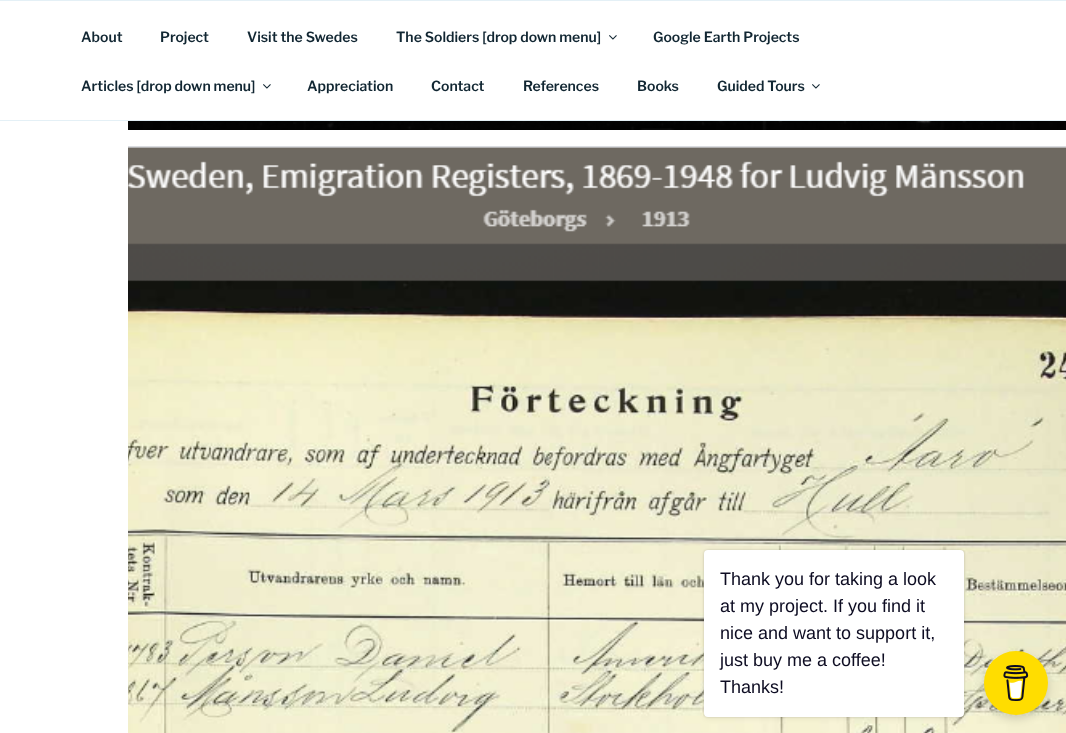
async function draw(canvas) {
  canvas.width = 1066;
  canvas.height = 733;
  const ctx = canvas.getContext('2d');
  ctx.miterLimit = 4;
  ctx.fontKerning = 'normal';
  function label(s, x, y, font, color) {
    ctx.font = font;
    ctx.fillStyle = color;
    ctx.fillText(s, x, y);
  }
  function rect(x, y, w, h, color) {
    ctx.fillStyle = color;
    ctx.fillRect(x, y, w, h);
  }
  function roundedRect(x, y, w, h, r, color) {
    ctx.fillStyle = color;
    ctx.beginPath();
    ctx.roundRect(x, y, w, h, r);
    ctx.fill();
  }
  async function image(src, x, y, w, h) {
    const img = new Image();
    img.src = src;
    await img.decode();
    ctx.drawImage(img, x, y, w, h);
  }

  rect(0, 0, 1066, 733, '#fff');
  rect(0, 0, 1066, 1, '#e4f0f6');
  rect(0, 120, 1066, 1, '#e4f0f6');
  label('About', 81, 42, '100 14px Libre Franklin', '#112632');
  label('Project', 160, 42, '100 14px Libre Franklin', '#112632');
  label('Visit the Swedes', 247, 42, '100 14px Libre Franklin', '#112632');
  label('The Soldiers [drop down menu]', 396, 42, '100 14px Libre Franklin', '#112632');
  await image('assets/img1.png', 609, 35, 8, 5);
  label('Google Earth Projects', 653, 42, '100 14px Libre Franklin', '#112632');
  label('Articles [drop down menu]', 81, 91, '100 14px Libre Franklin', '#112632');
  await image('assets/img1.png', 263, 84, 8, 5);
  label('Appreciation', 307, 91, '100 14px Libre Franklin', '#112632');
  label('Contact', 431, 91, '100 14px Libre Franklin', '#112632');
  label('References', 523, 91, '100 14px Libre Franklin', '#112632');
  label('Books', 637, 91, '100 14px Libre Franklin', '#112632');
  label('Guided Tours', 717, 91, '100 14px Libre Franklin', '#112632');
  await image('assets/img1.png', 812, 84, 8, 5);
  await image('assets/img2.png', 128, 121, 938, 9);
  await image('assets/img3.png', 128, 146, 938, 587);
  ctx.fillStyle = '#00000026';
  ctx.filter = 'blur(1px)';
  ctx.beginPath();
  ctx.roundRect(704, 550, 260, 167, 4);
  ctx.fill();
  ctx.filter = 'none';
  ctx.fillStyle = '#0000000d';
  ctx.filter = 'blur(2.5px)';
  ctx.beginPath();
  ctx.roundRect(704, 552, 260, 167, 4);
  ctx.fill();
  ctx.filter = 'none';
  roundedRect(704, 550, 260, 167, 4, '#fff');
  label('Thank you for taking a look', 720, 585, '18px Liberation Sans', '#0d0c22');
  label('at my project. If you find it', 720, 612, '18px Liberation Sans', '#0d0c22');
  label('nice and want to support it,', 720, 639, '18px Liberation Sans', '#0d0c22');
  label('just buy me a coffee!', 720, 666, '18px Liberation Sans', '#0d0c22');
  label('Thanks!', 720, 693, '18px Liberation Sans', '#0d0c22');
  ctx.fillStyle = '#00000026';
  ctx.filter = 'blur(4px)';
  ctx.beginPath();
  ctx.roundRect(984, 655, 64, 64, 32);
  ctx.fill();
  ctx.filter = 'none';
  ctx.fillStyle = '#fd0';
  ctx.beginPath();
  ctx.arc(1016, 683, 32, 0, 2 * Math.PI);
  ctx.fill();
  await image('assets/img4.png', 1003, 665, 26, 36);
}

draw(document.querySelector('canvas'));
